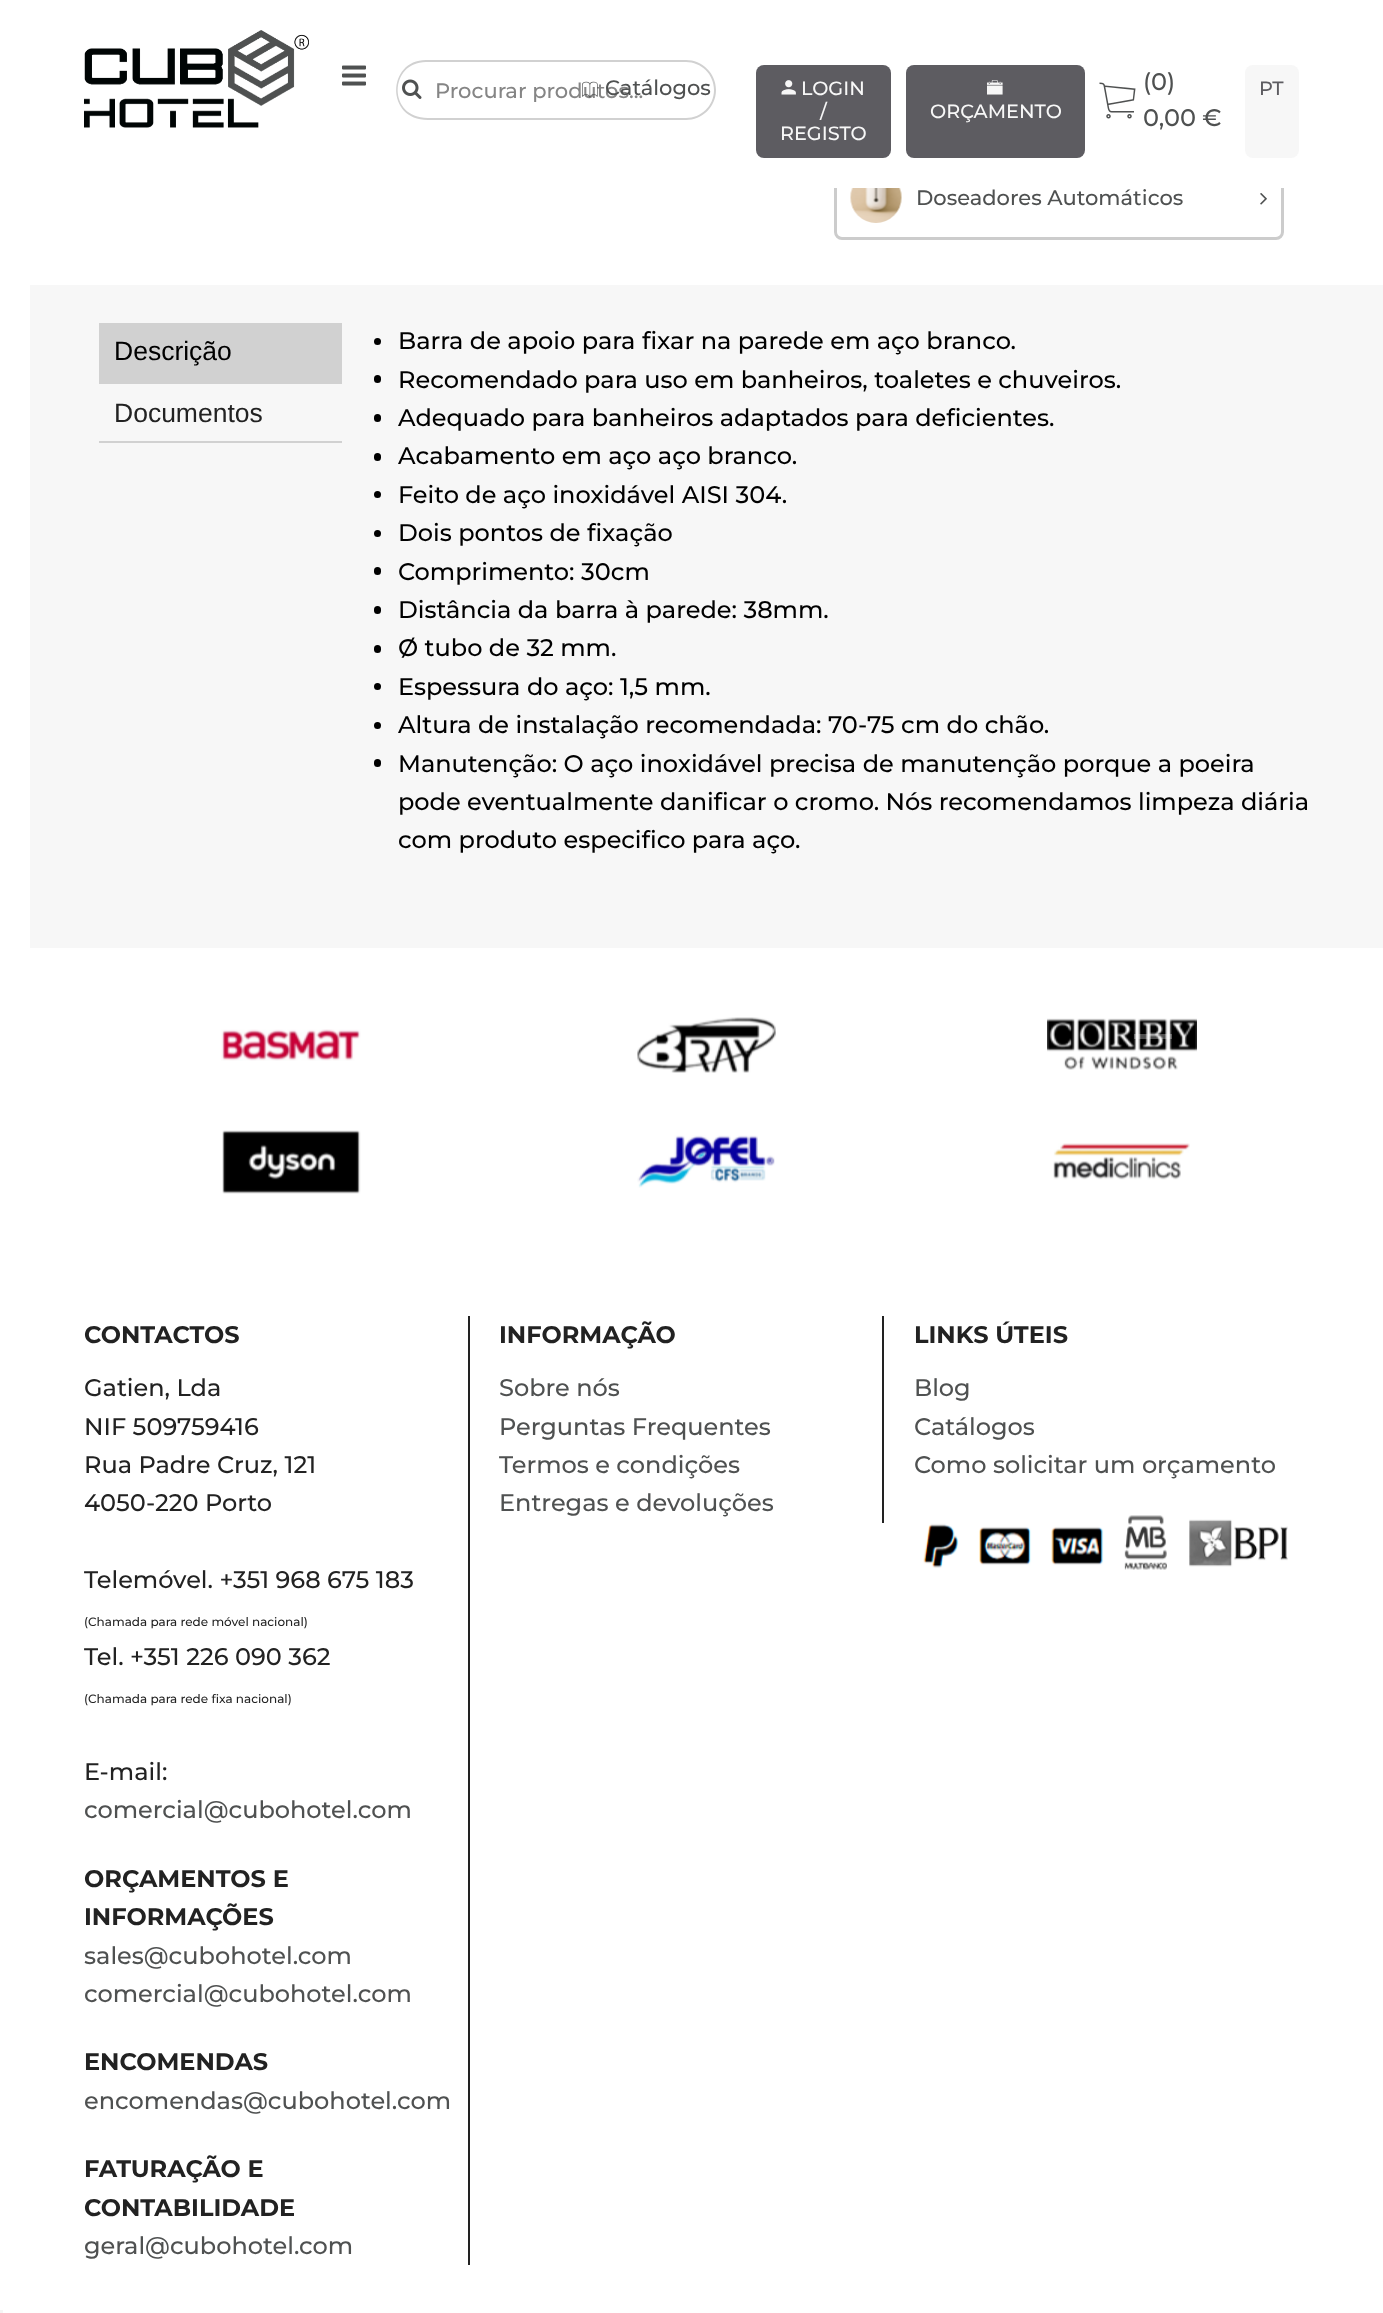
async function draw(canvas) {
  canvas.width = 1383;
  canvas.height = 2313;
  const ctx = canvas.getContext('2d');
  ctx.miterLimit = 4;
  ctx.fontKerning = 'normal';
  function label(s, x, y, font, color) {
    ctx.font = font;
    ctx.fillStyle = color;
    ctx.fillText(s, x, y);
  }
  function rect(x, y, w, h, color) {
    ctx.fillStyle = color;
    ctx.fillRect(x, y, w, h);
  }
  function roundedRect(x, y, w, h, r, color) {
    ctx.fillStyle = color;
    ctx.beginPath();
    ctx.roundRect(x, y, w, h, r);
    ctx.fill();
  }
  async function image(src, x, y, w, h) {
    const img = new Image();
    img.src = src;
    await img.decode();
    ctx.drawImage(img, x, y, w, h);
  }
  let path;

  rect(0, 0, 1383, 2313, '#fff');
  ctx.beginPath();
  ctx.roundRect(835.5, 157.5, 447, 81, 6.5);
  ctx.strokeStyle = '#ccc';
  ctx.lineWidth = 3;
  ctx.stroke();
  rect(834, 156, 450, 32, '#fff');
  await image('assets/img1.png', 84, 30, 225, 98);
  await image('assets/img2.png', 342, 65, 24, 21);
  ctx.fillStyle = '#d1d1d1';
  path = new Path2D('M426 60H428V120C385 120 387 60 426 60ZM426 62H428V118C387 118 389 62 426 62Z');
  ctx.fill(path, 'evenodd');
  await image('assets/img3.png', 402, 79, 20, 20);
  path = new Path2D('M428 60H686C702 60 716 73 716 90C716 107 702 120 686 120H428ZM428 62H686C701 62 714 74 714 90C714 106 701 118 686 118H428Z');
  ctx.fill(path, 'evenodd');
  label('Procurar produtos...', 435, 98, '500 21px Montserrat', '#858585');
  await image('assets/img4.png', 582, 81, 16, 17);
  label('Catálogos', 605, 95, '500 21px Montserrat', '#4f5151');
  roundedRect(756, 65, 135, 93, 8, '#5d5c61');
  await image('assets/img5.png', 781, 80, 15, 15);
  label('LOGIN', 801, 95, '500 19.25px Montserrat', '#f7f7f7');
  label('/', 820, 118, '500 19.25px Montserrat', '#f7f7f7');
  label('REGISTO', 780, 140, '500 19.25px Montserrat', '#f7f7f7');
  await image('assets/img6.png', 1099, 82, 37, 37);
  label('(0)', 1143, 90, '500 24px Montserrat', '#4f5151');
  label('0,00 €', 1143, 126, '500 24px Montserrat', '#4f5151');
  roundedRect(1245, 65, 54, 93, 8, '#f7f7f7');
  label('PT', 1259, 95, '500 19.25px Montserrat', '#5d5c61');
  roundedRect(906, 65, 179, 93, 8, '#5d5c61');
  await image('assets/img7.png', 987, 80, 16, 15);
  label('ORÇAMENTO', 930, 118, '500 19.25px Montserrat', '#f7f7f7');
  await image('assets/img8.png', 850, 188, 52, 35);
  label('Doseadores Automáticos', 916, 205, '500 21px Montserrat', '#4f5151');
  await image('assets/img9.png', 1260, 193, 7, 12);
  rect(30, 285, 1353, 663, '#f7f7f7');
  rect(99, 323, 243, 61, '#d1d1d1');
  label('Descrição', 114, 360, '26.5px Liberation Sans', '#000');
  rect(99, 441, 243, 2, '#d1d1d1');
  label('Documentos', 114, 422, '26.5px Liberation Sans', '#222');
  ctx.fillStyle = '#000';
  ctx.beginPath();
  ctx.arc(377.5, 341.5, 3.5, 0, 2 * Math.PI);
  ctx.fill();
  label('Barra de apoio para fixar na parede em aço branco.', 398, 349, '500 24px Montserrat', '#000');
  roundedRect(374, 375, 7, 8, 3.5, '#000');
  label('Recomendado para uso em banheiros, toaletes e chuveiros.', 398, 388, '500 24px Montserrat', '#000');
  roundedRect(374, 414, 7, 8, 3.5, '#000');
  label('Adequado para banheiros adaptados para deficientes.', 398, 426, '500 24px Montserrat', '#000');
  roundedRect(374, 453, 7, 8, 3.5, '#000');
  label('Acabamento em aço aço branco.', 398, 464, '500 24px Montserrat', '#000');
  ctx.beginPath();
  ctx.arc(377.5, 494.5, 3.5, 0, 2 * Math.PI);
  ctx.fill();
  label('Feito de aço inoxidável AISI 304.', 398, 503, '500 24px Montserrat', '#000');
  ctx.beginPath();
  ctx.arc(377.5, 533.5, 3.5, 0, 2 * Math.PI);
  ctx.fill();
  label('Dois pontos de fixação', 398, 541, '500 24px Montserrat', '#000');
  roundedRect(374, 567, 7, 8, 3.5, '#000');
  label('Comprimento: 30cm', 398, 580, '500 24px Montserrat', '#000');
  roundedRect(374, 606, 7, 8, 3.5, '#000');
  label('Distância da barra à parede: 38mm.', 398, 618, '500 24px Montserrat', '#000');
  roundedRect(374, 645, 7, 8, 3.5, '#000');
  label('Ø tubo de 32 mm.', 398, 656, '500 24px Montserrat', '#000');
  ctx.beginPath();
  ctx.arc(377.5, 686.5, 3.5, 0, 2 * Math.PI);
  ctx.fill();
  label('Espessura do aço: 1,5 mm.', 398, 695, '500 24px Montserrat', '#000');
  ctx.beginPath();
  ctx.arc(377.5, 725.5, 3.5, 0, 2 * Math.PI);
  ctx.fill();
  label('Altura de instalação recomendada: 70-75 cm do chão.', 398, 733, '500 24px Montserrat', '#000');
  roundedRect(374, 759, 7, 8, 3.5, '#000');
  label('Manutenção: O aço inoxidável precisa de manutenção porque a poeira', 398, 772, '500 24px Montserrat', '#000');
  label('pode eventualmente danificar o cromo. Nós recomendamos limpeza diária', 398, 810, '500 24px Montserrat', '#000');
  label('com produto especifico para aço.', 398, 848, '500 24px Montserrat', '#000');
  await image('assets/img10.png', 221, 1029, 140, 32);
  await image('assets/img11.png', 637, 1017, 139, 56);
  await image('assets/img12.png', 1047, 1018, 150, 52);
  await image('assets/img13.png', 222, 1130, 139, 64);
  await image('assets/img14.png', 637, 1135, 138, 53);
  await image('assets/img15.png', 1053, 1143, 137, 37);
  rect(1134, 1034, 38, 5, '#ffffff4d');
  rect(468, 1316, 2, 949, '#222');
  label('CONTACTOS', 84, 1343, 'bold 24px Montserrat', '#222');
  label('Gatien, Lda', 84, 1396, '500 24px Montserrat', '#222');
  label('NIF 509759416', 84, 1435, '500 24px Montserrat', '#222');
  label('Rua Padre Cruz, 121', 84, 1473, '500 24px Montserrat', '#222');
  label('4050-220 Porto', 84, 1511, '500 24px Montserrat', '#222');
  label('Telemóvel. +351 968 675 183', 84, 1588, '500 24px Montserrat', '#222');
  label('(Chamada para rede móvel nacional)', 84, 1626, '500 12px Montserrat', '#222');
  label('Tel. +351 226 090 362', 84, 1665, '500 24px Montserrat', '#222');
  label('(Chamada para rede fixa nacional)', 84, 1703, '500 12px Montserrat', '#222');
  label('E-mail:', 84, 1780, '500 24px Montserrat', '#222');
  label('comercial@cubohotel.com', 84, 1818, '500 24px Montserrat', '#4f5151');
  label('ORÇAMENTOS E', 84, 1887, 'bold 24px Montserrat', '#222');
  label('INFORMAÇÕES', 84, 1925, 'bold 24px Montserrat', '#222');
  label('sales@cubohotel.com', 84, 1964, '500 24px Montserrat', '#4f5151');
  label('comercial@cubohotel.com', 84, 2002, '500 24px Montserrat', '#4f5151');
  label('ENCOMENDAS', 84, 2070, 'bold 24px Montserrat', '#222');
  label('encomendas@cubohotel.com', 84, 2109, '500 24px Montserrat', '#4f5151');
  label('FATURAÇÃO E', 84, 2177, 'bold 24px Montserrat', '#222');
  label('CONTABILIDADE', 84, 2216, 'bold 24px Montserrat', '#222');
  label('geral@cubohotel.com', 84, 2254, '500 24px Montserrat', '#4f5151');
  rect(882, 1316, 2, 207, '#222');
  label('INFORMAÇÃO', 499, 1343, 'bold 24px Montserrat', '#222');
  label('Sobre nós', 499, 1396, '500 24px Montserrat', '#4f5151');
  label('Perguntas Frequentes', 499, 1435, '500 24px Montserrat', '#4f5151');
  label('Termos e condições', 499, 1473, '500 24px Montserrat', '#4f5151');
  label('Entregas e devoluções', 499, 1511, '500 24px Montserrat', '#4f5151');
  label('LINKS ÚTEIS', 914, 1343, 'bold 24px Montserrat', '#222');
  label('Blog', 914, 1396, '500 24px Montserrat', '#4f5151');
  label('Catálogos', 914, 1435, '500 24px Montserrat', '#4f5151');
  label('Como solicitar um orçamento', 914, 1473, '500 24px Montserrat', '#4f5151');
  await image('assets/img16.png', 923, 1515, 365, 55);
  rect(0, 2310, 3, 3, '#f5f5f5');
}

draw(document.querySelector('canvas'));
